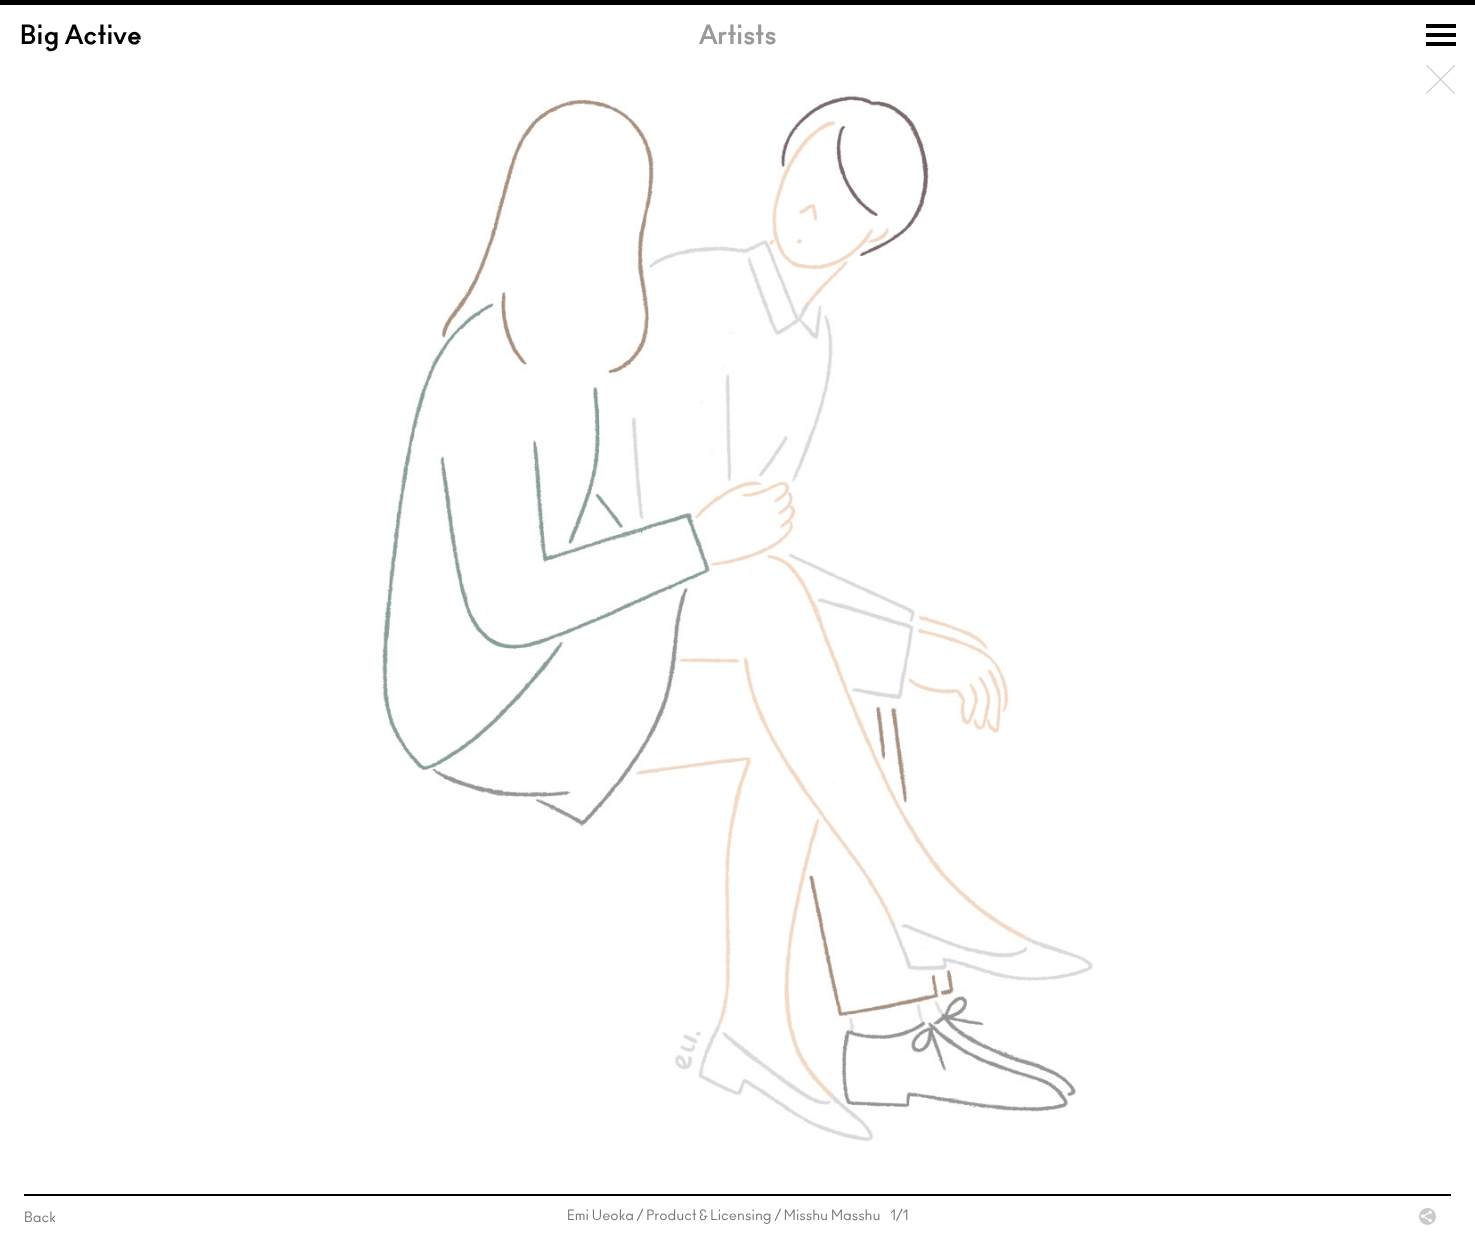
async function draw(canvas) {
  canvas.width = 1475;
  canvas.height = 1239;
  const ctx = canvas.getContext('2d');
  ctx.miterLimit = 4;
  ctx.fontKerning = 'normal';
  function label(s, x, y, font, color) {
    ctx.font = font;
    ctx.fillStyle = color;
    ctx.fillText(s, x, y);
  }
  function rect(x, y, w, h, color) {
    ctx.fillStyle = color;
    ctx.fillRect(x, y, w, h);
  }
  async function image(src, x, y, w, h) {
    const img = new Image();
    img.src = src;
    await img.decode();
    ctx.drawImage(img, x, y, w, h);
  }

  rect(0, 0, 1475, 1239, '#fff');
  rect(0, 0, 1475, 5, '#000');
  label('Big Active', 20, 44, 'bold 26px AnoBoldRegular', '#000');
  label('Artists', 699, 44, 'bold 26px AnoBoldRegular', '#999');
  rect(1426, 24, 30, 4, '#000');
  rect(1426, 33, 30, 4, '#000');
  rect(1426, 42, 30, 4, '#000');
  await image('assets/img1.png', 1426, 65, 30, 29);
  await image('assets/img2.png', 379, 92, 714, 1050);
  rect(24, 1194, 1427, 2, '#000');
  label('Back', 24, 1222, '14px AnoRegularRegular', '#797979');
  label('Emi Ueoka / Product & Licensing / Misshu Masshu', 567, 1220, '14px AnoRegularRegular', '#797979');
  label('1/1', 890, 1220, '14px AnoRegularRegular', '#797979');
  ctx.fillStyle = '#c9cacc';
  ctx.beginPath();
  ctx.arc(1427.5, 1216.5, 8.5, 0, 2 * Math.PI);
  ctx.fill();
  await image('assets/img3.png', 1421, 1210, 11, 12);
}

draw(document.querySelector('canvas'));
